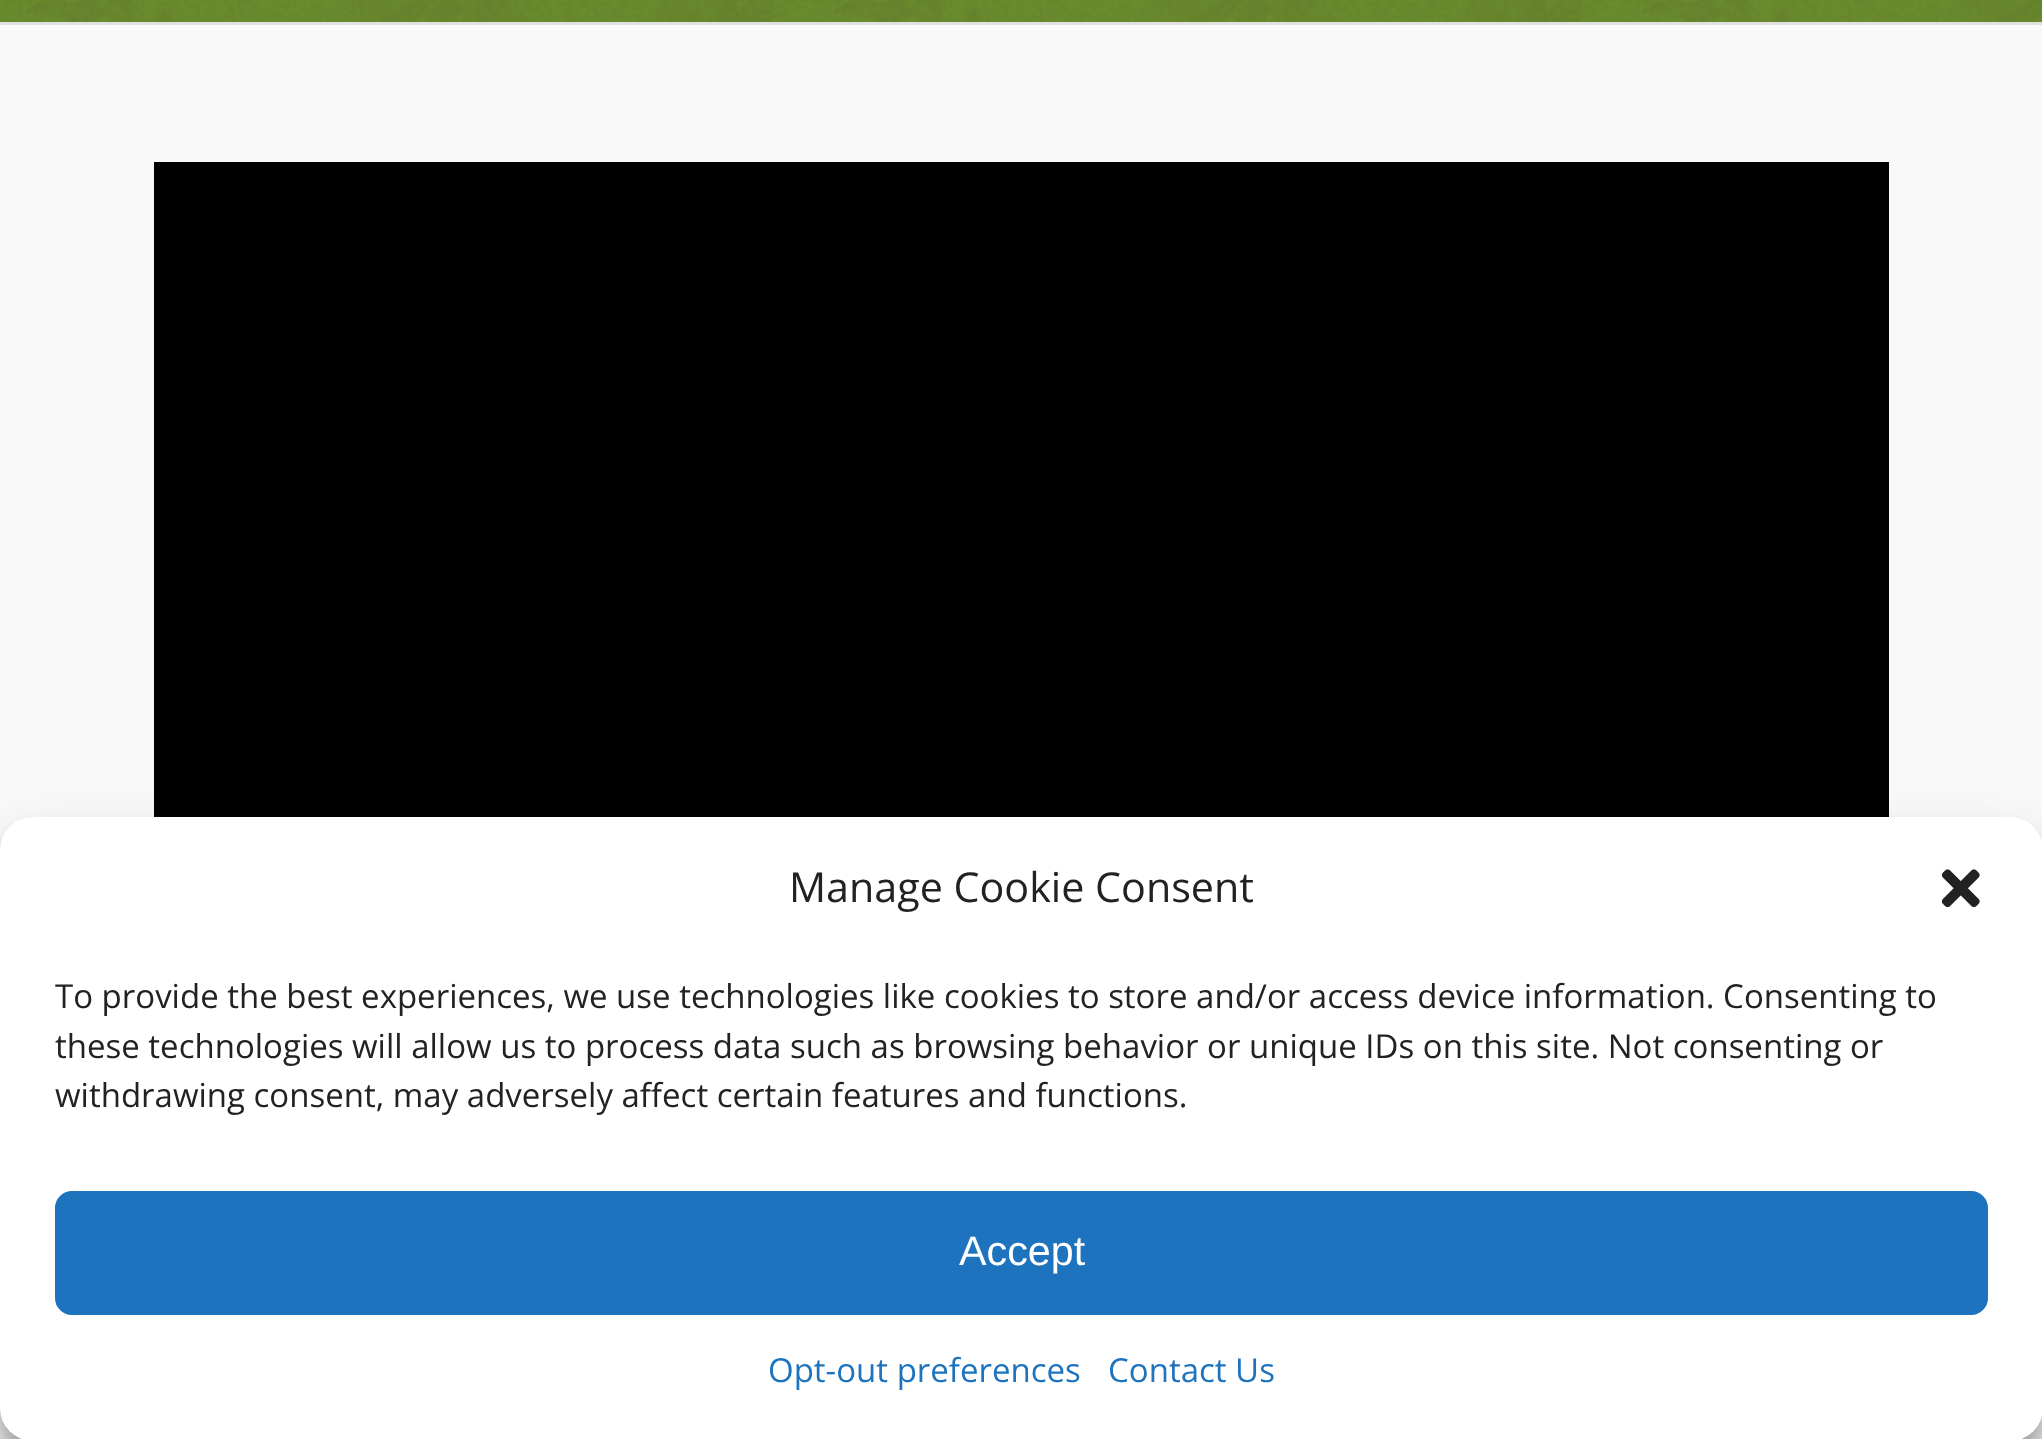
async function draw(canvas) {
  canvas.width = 2042;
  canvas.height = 1439;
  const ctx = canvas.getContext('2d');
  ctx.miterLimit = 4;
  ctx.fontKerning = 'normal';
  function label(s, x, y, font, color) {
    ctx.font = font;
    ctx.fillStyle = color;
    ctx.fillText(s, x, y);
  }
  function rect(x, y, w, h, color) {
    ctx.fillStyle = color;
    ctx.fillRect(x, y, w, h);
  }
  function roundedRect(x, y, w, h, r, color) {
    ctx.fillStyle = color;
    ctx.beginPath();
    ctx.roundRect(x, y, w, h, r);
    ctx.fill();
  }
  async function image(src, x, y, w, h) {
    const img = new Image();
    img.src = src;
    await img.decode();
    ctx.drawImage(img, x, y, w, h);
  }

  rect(0, 0, 2042, 1439, '#719430');
  await image('assets/img1.png', 0, 0, 2042, 22);
  rect(0, 25, 2042, 1414, '#f9f9f9');
  rect(0, 22, 2042, 3, '#e1e1e1');
  rect(154, 162, 1735, 655, '#000');
  ctx.fillStyle = '#0000003b';
  ctx.filter = 'blur(8px)';
  ctx.beginPath();
  ctx.roundRect(0, 833, 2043, 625, 33);
  ctx.fill();
  ctx.filter = 'none';
  ctx.fillStyle = '#00000030';
  ctx.filter = 'blur(27.5px)';
  ctx.beginPath();
  ctx.roundRect(0, 844, 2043, 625, 33);
  ctx.fill();
  ctx.filter = 'none';
  roundedRect(0, 817, 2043, 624, 33, '#fff');
  label('Manage Cookie Consent', 789, 902, '41.25px Open Sans', '#222');
  await image('assets/img2.png', 1941, 869, 39, 39);
  label('To provide the best experiences, we use technologies like cookies to store and/or access device information. Consenting to', 55, 1008, '33px Open Sans', '#222');
  label('these technologies will allow us to process data such as browsing behavior or unique IDs on this site. Not consenting or', 55, 1058, '33px Open Sans', '#222');
  label('withdrawing consent, may adversely affect certain features and functions.', 55, 1107, '33px Open Sans', '#222');
  ctx.fillStyle = '#1e73be';
  ctx.beginPath();
  ctx.roundRect(56.5, 1192.5, 1930, 121, 15.5);
  ctx.fill();
  ctx.strokeStyle = '#1e73be';
  ctx.lineWidth = 3;
  ctx.stroke();
  label('Accept', 959, 1265, '41.25px Liberation Sans', '#fff');
  label('Opt-out preferences', 768, 1382, '33px Open Sans', '#1e73be');
  label('Contact Us', 1108, 1382, '33px Open Sans', '#1e73be');
}

draw(document.querySelector('canvas'));
